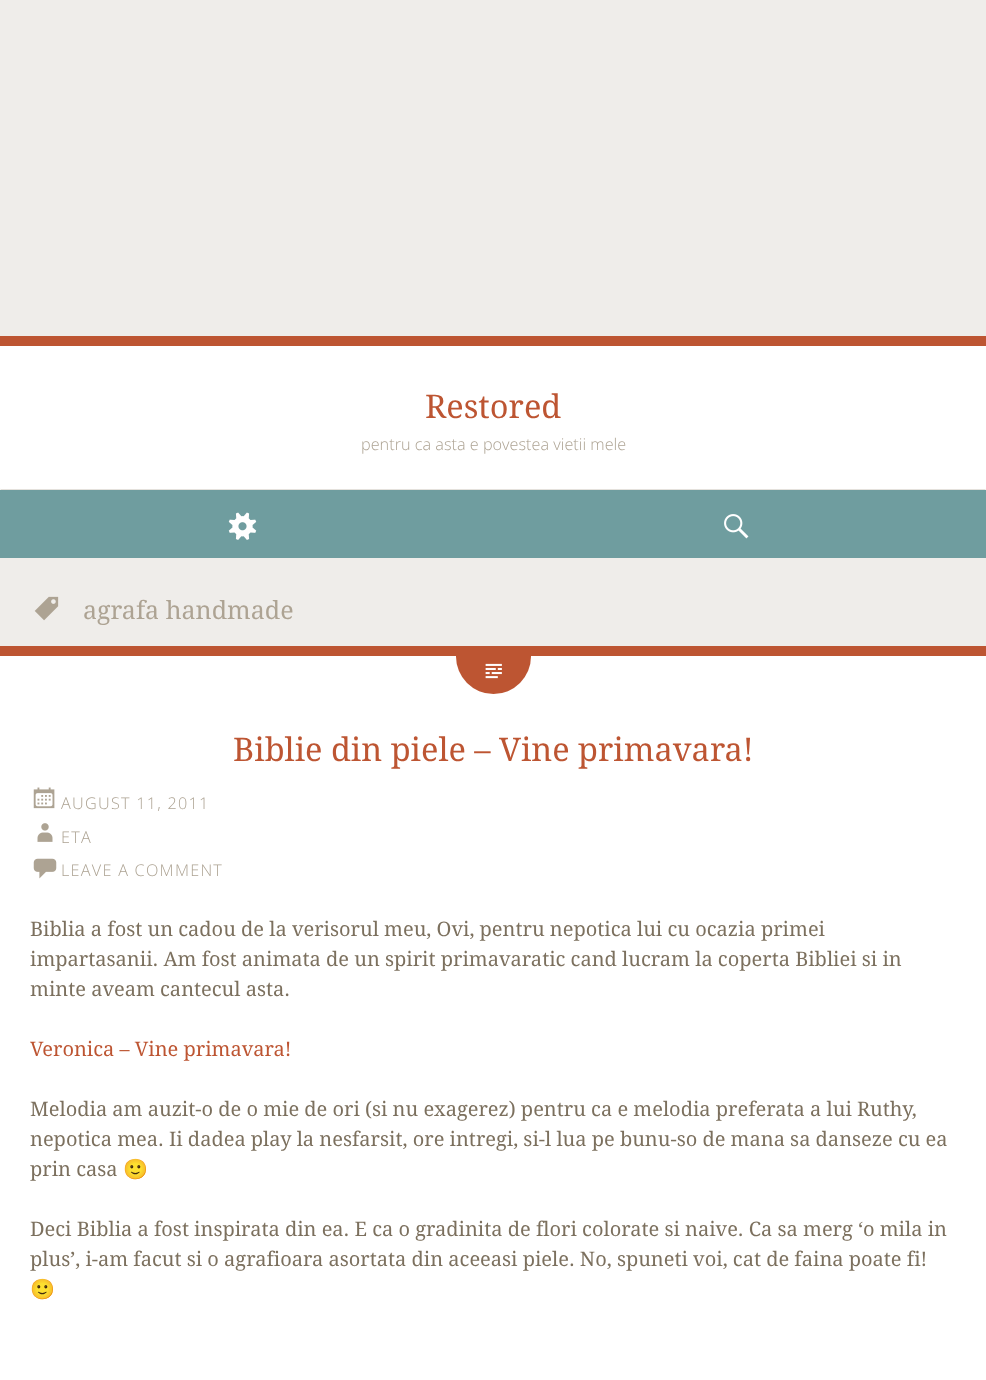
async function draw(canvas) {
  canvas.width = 986;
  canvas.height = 1380;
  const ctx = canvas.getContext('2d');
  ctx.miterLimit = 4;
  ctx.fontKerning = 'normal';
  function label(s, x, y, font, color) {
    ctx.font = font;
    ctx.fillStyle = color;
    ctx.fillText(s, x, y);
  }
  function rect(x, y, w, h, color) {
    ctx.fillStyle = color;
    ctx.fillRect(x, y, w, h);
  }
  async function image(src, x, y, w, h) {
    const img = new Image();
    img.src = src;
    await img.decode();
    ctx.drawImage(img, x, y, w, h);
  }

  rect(0, 0, 986, 1380, '#efedea');
  ctx.fillStyle = '#fff';
  ctx.beginPath();
  ctx.roundRect(0, 346, 986, 144, [0, 0, 2.5, 2.5]);
  ctx.fill();
  rect(1, 489, 984, 1, '#e4e1dc');
  rect(0, 336, 986, 10, '#bd5532');
  label('Restored', 425, 418, '32.5px Droid Serif', '#bd5532');
  label('pentru ca asta e povestea vietii mele', 361, 450, '300 16.25px Open Sans', '#ada393');
  rect(0, 490, 986, 68, '#6f9d9f');
  await image('assets/img1.png', 228, 512, 29, 28);
  await image('assets/img2.png', 724, 514, 25, 25);
  await image('assets/img3.png', 34, 596, 25, 25);
  label('agrafa handmade', 83, 619, '25px Droid Serif', '#ada393');
  rect(0, 656, 986, 724, '#fff');
  rect(0, 646, 986, 10, '#bd5532');
  ctx.beginPath();
  ctx.roundRect(456, 656, 75, 38, [0, 0, 37.5, 37.5]);
  ctx.fill();
  await image('assets/img4.png', 485, 663, 17, 16);
  label('Biblie din piele – Vine primavara!', 233, 761, '32.5px Droid Serif', '#bd5532');
  await image('assets/img5.png', 33, 787, 22, 22);
  ctx.letterSpacing = '1.25px';
  label('AUGUST 11, 2011', 61, 809, '300 16.25px Open Sans', '#ada393');
  await image('assets/img6.png', 37, 823, 16, 19);
  label('ETA', 61, 843, '300 16.25px Open Sans', '#ada393');
  await image('assets/img7.png', 33, 858, 24, 21);
  label('LEAVE A COMMENT', 61, 876, '300 16.25px Open Sans', '#ada393');
  ctx.letterSpacing = '0px';
  label('Biblia a fost un cadou de la verisorul meu, Ovi, pentru nepotica lui cu ocazia primei', 30, 936, '20px Droid Serif', '#7c705e');
  label('impartasanii. Am fost animata de un spirit primavaratic cand lucram la coperta Bibliei si in', 30, 966, '20px Droid Serif', '#7c705e');
  label('minte aveam cantecul asta.', 30, 996, '20px Droid Serif', '#7c705e');
  label('Veronica – Vine primavara!', 30, 1056, '20px Droid Serif', '#bd5532');
  label('Melodia am auzit-o de o mie de ori (si nu exagerez) pentru ca e melodia preferata a lui Ruthy,', 30, 1116, '20px Droid Serif', '#7c705e');
  label('nepotica mea. Ii dadea play la nesfarsit, ore intregi, si-l lua pe bunu-so de mana sa danseze cu ea', 30, 1146, '20px Droid Serif', '#7c705e');
  label('prin casa', 30, 1176, '20px Droid Serif', '#7c705e');
  label('🙂', 123, 1176, '20px Noto Color Emoji', '#7c705e');
  label('Deci Biblia a fost inspirata din ea. E ca o gradinita de flori colorate si naive. Ca sa merg ‘o mila in', 30, 1236, '20px Droid Serif', '#7c705e');
  label('plus’, i-am facut si o agrafioara asortata din aceeasi piele. No, spuneti voi, cat de faina poate fi!', 30, 1266, '20px Droid Serif', '#7c705e');
  label('🙂', 30, 1296, '20px Noto Color Emoji', '#7c705e');
}

draw(document.querySelector('canvas'));
